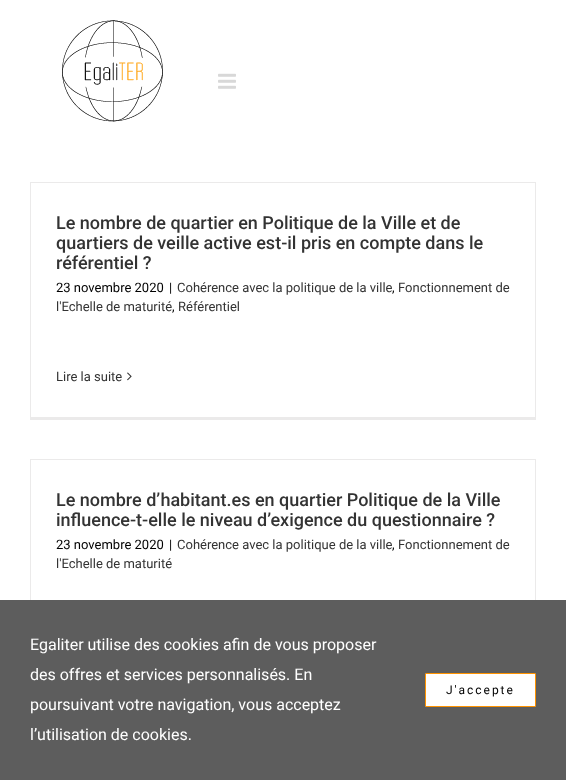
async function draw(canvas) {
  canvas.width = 566;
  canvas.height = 780;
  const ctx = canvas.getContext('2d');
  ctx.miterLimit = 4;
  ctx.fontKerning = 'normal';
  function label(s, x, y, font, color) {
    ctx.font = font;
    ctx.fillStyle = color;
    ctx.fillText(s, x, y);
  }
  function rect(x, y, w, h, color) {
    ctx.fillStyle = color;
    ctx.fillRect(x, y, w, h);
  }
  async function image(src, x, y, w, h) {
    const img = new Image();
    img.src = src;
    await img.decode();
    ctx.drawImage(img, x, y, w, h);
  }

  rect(0, 0, 566, 780, '#fff');
  await image('assets/img1.png', 62, 20, 101, 102);
  await image('assets/img2.png', 218, 73, 18, 16);
  rect(30, 182, 506, 1, '#ebeaea');
  rect(535, 182, 1, 238, '#ebeaea');
  rect(30, 417, 506, 3, '#ebeaea');
  rect(30, 182, 1, 238, '#ebeaea');
  label('Le nombre de quartier en Politique de la Ville et de', 56, 229, '500 18px Roboto', '#333');
  label('quartiers de veille active est-il pris en compte dans le', 56, 249, '500 18px Roboto', '#333');
  label('référentiel ?', 56, 269, '500 18px Roboto', '#333');
  label('23 novembre 2020', 56, 292, '13px Roboto', '#000');
  label('|', 169, 292, '13px Roboto', '#000');
  label('Cohérence avec la politique de la ville', 177, 292, '13px Roboto', '#333');
  label(',', 392, 292, '13px Roboto', '#000');
  label('Fonctionnement de', 398, 292, '13px Roboto', '#333');
  label('l\'Echelle de maturité', 56, 311, '13px Roboto', '#333');
  label(',', 172, 311, '13px Roboto', '#000');
  label('Référentiel', 178, 311, '13px Roboto', '#333');
  label('Lire la suite', 56, 381, '13px Roboto', '#333');
  await image('assets/img3.png', 127, 372, 5, 9);
  rect(30, 459, 506, 1, '#ebeaea');
  rect(535, 459, 1, 141, '#ebeaea');
  rect(30, 459, 1, 141, '#ebeaea');
  label('Le nombre d’habitant.es en quartier Politique de la Ville', 56, 506, '500 18px Roboto', '#333');
  label('influence-t-elle le niveau d’exigence du questionnaire ?', 56, 526, '500 18px Roboto', '#333');
  label('23 novembre 2020', 56, 549, '13px Roboto', '#000');
  label('|', 169, 549, '13px Roboto', '#000');
  label('Cohérence avec la politique de la ville', 177, 549, '13px Roboto', '#333');
  label(',', 392, 549, '13px Roboto', '#000');
  label('Fonctionnement de', 398, 549, '13px Roboto', '#333');
  label('l\'Echelle de maturité', 56, 568, '13px Roboto', '#333');
  rect(0, 600, 566, 180, '#5d5d5d');
  label('Egaliter utilise des cookies afin de vous proposer', 30, 650, '16px Roboto', '#fff');
  label('des offres et services personnalisés. En', 30, 680, '16px Roboto', '#fff');
  label('poursuivant votre navigation, vous acceptez', 30, 710, '16px Roboto', '#fff');
  label('l’utilisation de cookies.', 30, 740, '16px Roboto', '#fff');
  ctx.beginPath();
  ctx.roundRect(425.5, 673.5, 110, 33, 0.5);
  ctx.fill();
  ctx.strokeStyle = '#ff9300';
  ctx.stroke();
  ctx.letterSpacing = '2px';
  label('J\'accepte', 446, 694, '12px Roboto', '#000');
}

draw(document.querySelector('canvas'));
